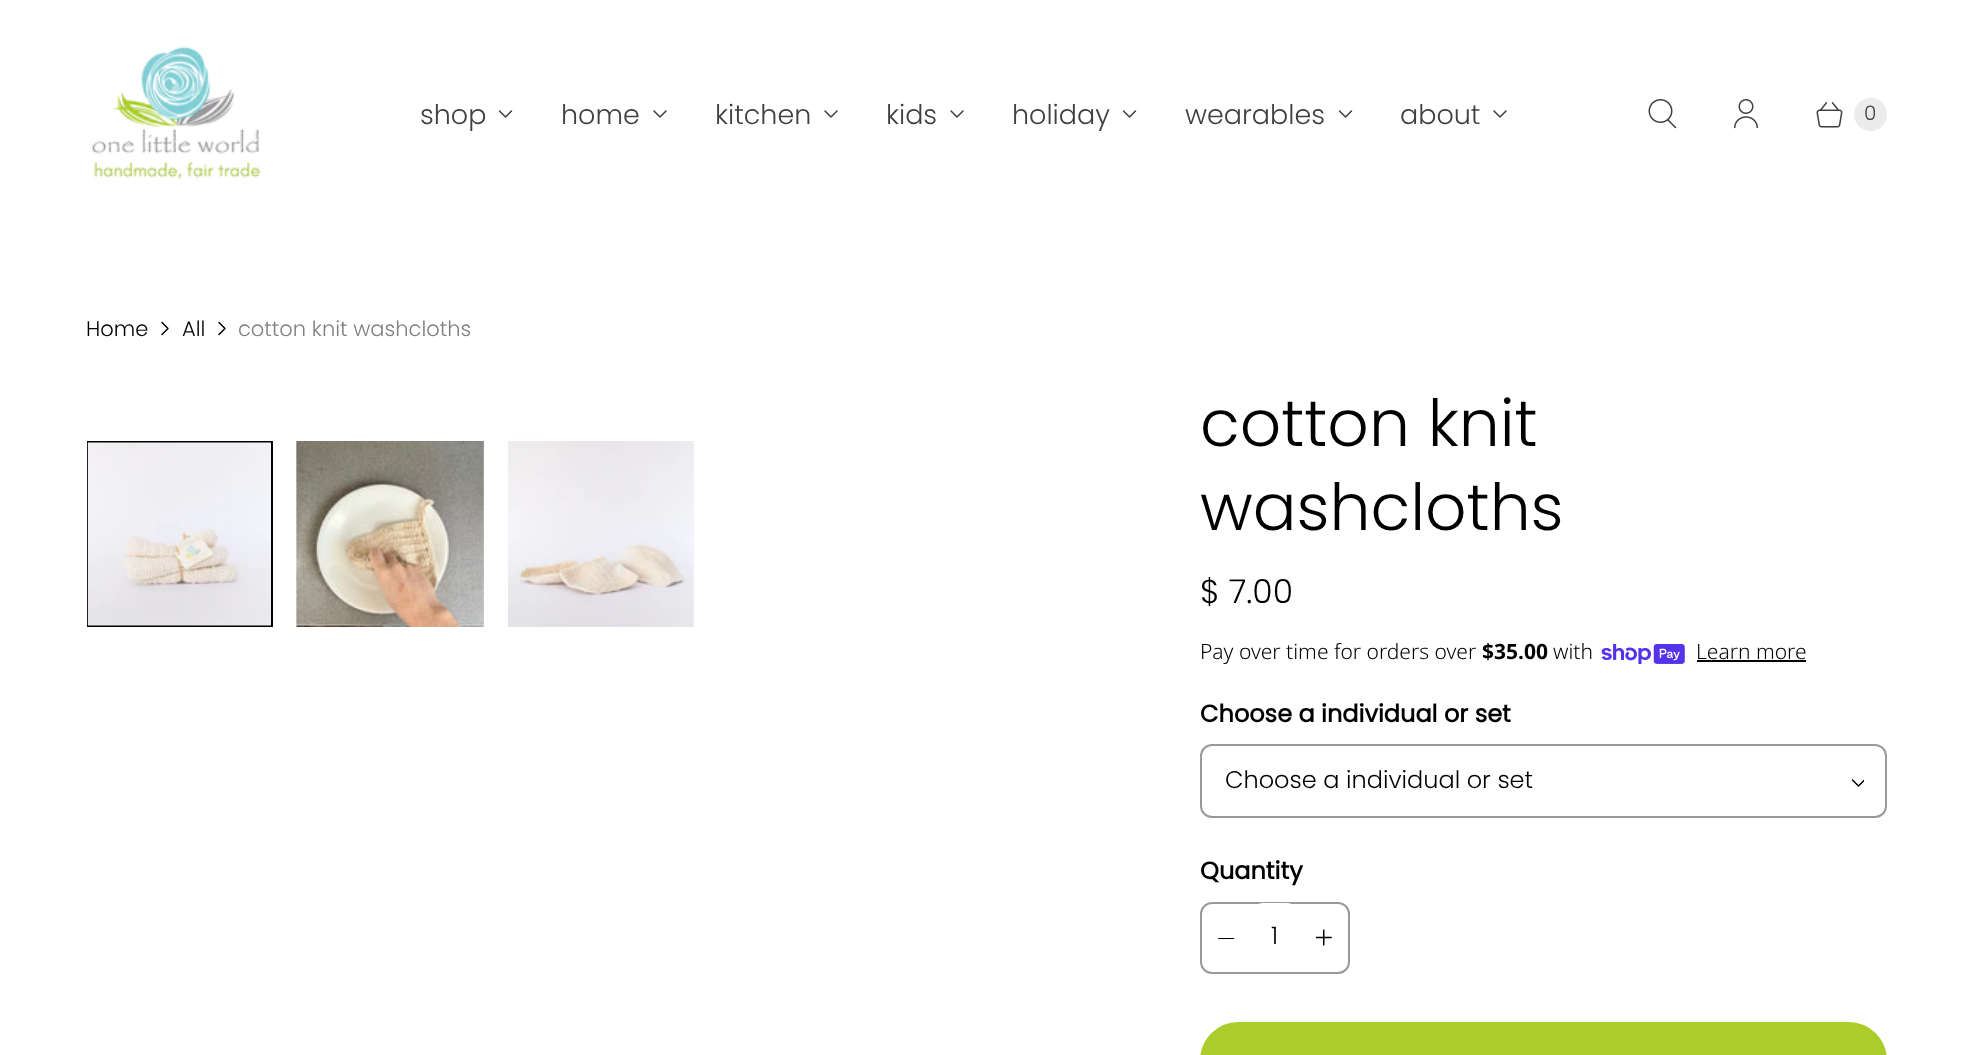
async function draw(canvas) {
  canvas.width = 1972;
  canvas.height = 1055;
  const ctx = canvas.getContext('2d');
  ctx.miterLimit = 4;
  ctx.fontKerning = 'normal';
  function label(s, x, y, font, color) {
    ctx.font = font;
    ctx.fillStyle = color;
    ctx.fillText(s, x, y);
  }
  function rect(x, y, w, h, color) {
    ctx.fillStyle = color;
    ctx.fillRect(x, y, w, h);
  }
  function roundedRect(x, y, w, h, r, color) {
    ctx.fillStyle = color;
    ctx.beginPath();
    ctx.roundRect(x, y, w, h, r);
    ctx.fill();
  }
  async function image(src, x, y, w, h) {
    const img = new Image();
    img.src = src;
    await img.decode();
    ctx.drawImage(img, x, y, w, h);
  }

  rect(0, 0, 1972, 1055, '#fff');
  await image('assets/img1.png', 91, 46, 170, 134);
  label('shop', 420, 124, '300 27px Poppins', '#404040');
  await image('assets/img2.png', 498, 110, 15, 8);
  label('home', 561, 124, '300 27px Poppins', '#404040');
  await image('assets/img3.png', 653, 110, 14, 8);
  label('kitchen', 715, 124, '300 27px Poppins', '#404040');
  await image('assets/img3.png', 824, 110, 14, 8);
  label('kids', 886, 124, '300 27px Poppins', '#404040');
  await image('assets/img3.png', 950, 110, 14, 8);
  label('holiday', 1012, 124, '300 27px Poppins', '#404040');
  await image('assets/img2.png', 1122, 110, 15, 8);
  label('wearables', 1185, 124, '300 27px Poppins', '#404040');
  await image('assets/img2.png', 1338, 110, 15, 8);
  label('about', 1400, 124, '300 27px Poppins', '#404040');
  await image('assets/img3.png', 1493, 110, 14, 8);
  await image('assets/img4.png', 1648, 99, 29, 30);
  await image('assets/img5.png', 1734, 99, 24, 30);
  await image('assets/img6.png', 1816, 102, 27, 26);
  ctx.fillStyle = '#ececec';
  ctx.beginPath();
  ctx.arc(1870.5, 114.5, 16.5, 0, 2 * Math.PI);
  ctx.fill();
  label('0', 1864, 120, '300 20px Poppins', '#404040');
  label('Home', 86, 336, '300 21px Poppins', '#000');
  await image('assets/img7.png', 161, 321, 8, 15);
  label('All', 182, 336, '300 21px Poppins', '#000');
  await image('assets/img7.png', 218, 321, 8, 15);
  label('cotton knit washcloths', 238, 336, '300 21px Poppins', '#808080');
  ctx.strokeStyle = '#000';
  ctx.lineWidth = 2;
  ctx.strokeRect(88, 442, 184, 184);
  await image('assets/img8.png', 87, 442, 184, 184);
  await image('assets/img9.png', 296, 441, 188, 186);
  await image('assets/img10.png', 508, 441, 186, 186);
  label('cotton knit', 1200, 446, '300 64.75px Poppins', '#000');
  label('washcloths', 1200, 530, '300 64.75px Poppins', '#000');
  label('$ 7.00', 1200, 603, '300 33px Poppins', '#000');
  label('Pay over time for orders over', 1200, 659, '300 21px Noto Sans', '#000');
  label('$35.00', 1482, 659, 'bold 21px Noto Sans', '#000');
  label('with', 1553, 659, '300 21px Noto Sans', '#000');
  await image('assets/img11.png', 1601, 644, 84, 21);
  label('Learn more', 1696, 659, '300 21px Noto Sans', '#000');
  rect(1697, 660, 109, 2, '#000');
  label('Choose a individual or set', 1200, 722, 'bold 24px Poppins', '#000');
  ctx.beginPath();
  ctx.roundRect(1201, 745, 685, 72, 11);
  ctx.strokeStyle = '#999';
  ctx.stroke();
  label('Choose a individual or set', 1225, 788, '300 24px Poppins', '#000');
  await image('assets/img12.png', 1851, 779, 13, 8);
  label('Quantity', 1200, 879, 'bold 24px Poppins', '#000');
  ctx.beginPath();
  ctx.roundRect(1201, 903, 148, 70, 11);
  ctx.stroke();
  await image('assets/img13.png', 1218, 938, 17, 1);
  roundedRect(1251, 903, 48, 69, 12, '#fff');
  label('1', 1271, 944, '300 24px Poppins', '#000');
  await image('assets/img14.png', 1316, 929, 16, 17);
  ctx.fillStyle = '#aacd2b';
  ctx.beginPath();
  ctx.roundRect(1201, 1023, 685, 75, 41);
  ctx.fill();
  ctx.strokeStyle = '#aacd2b';
  ctx.stroke();
}

draw(document.querySelector('canvas'));
